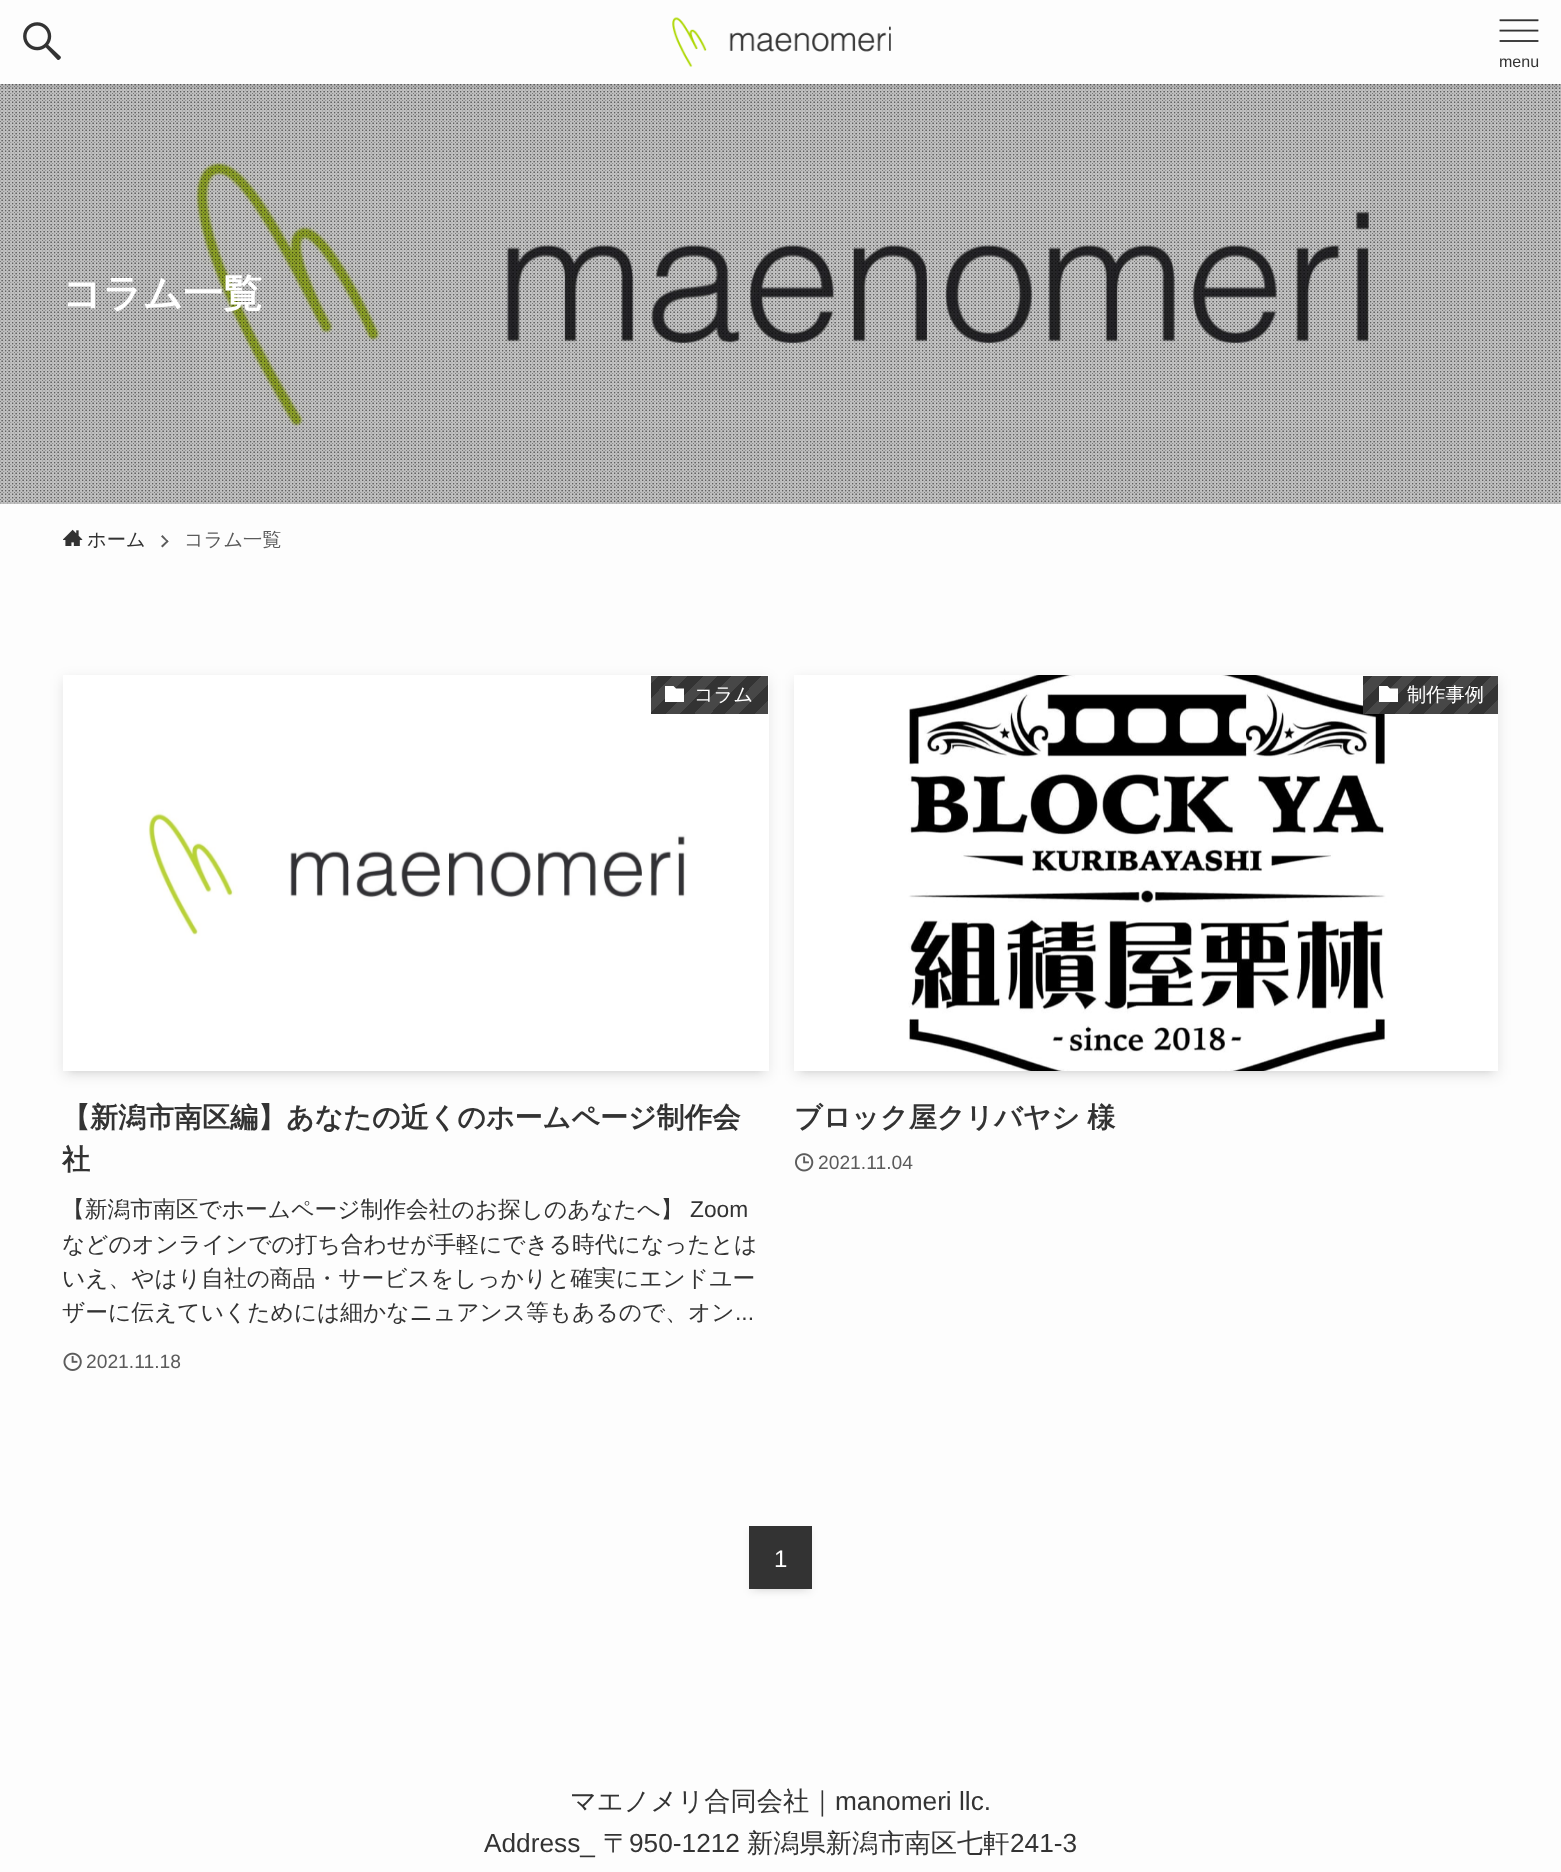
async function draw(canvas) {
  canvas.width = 1561;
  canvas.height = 1872;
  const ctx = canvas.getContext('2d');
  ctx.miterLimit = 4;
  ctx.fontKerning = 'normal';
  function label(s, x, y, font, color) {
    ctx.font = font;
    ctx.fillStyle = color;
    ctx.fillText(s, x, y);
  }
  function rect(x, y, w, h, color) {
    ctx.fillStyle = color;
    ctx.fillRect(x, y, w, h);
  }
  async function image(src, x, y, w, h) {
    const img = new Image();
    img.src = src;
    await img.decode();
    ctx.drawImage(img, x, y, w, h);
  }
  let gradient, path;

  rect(0, 0, 1561, 1872, '#fdfdfd');
  rect(0, 84, 1561, 420, '#c0c0c0');
  await image('assets/img5.png', 195, 162, 1175, 265);
  await image('assets/img4.png', 0, 84, 1561, 420);
  ctx.save();
  ctx.beginPath();
  ctx.rect(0, 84, 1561, 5);
  ctx.clip();
  ctx.fillStyle = '#0000001f';
  ctx.filter = 'blur(3.5px)';
  ctx.beginPath();
  ctx.rect(0, 2, 1561, 84);
  ctx.fill();
  ctx.filter = 'none';
  ctx.restore();
  await image('assets/img1.png', 23, 22, 38, 38);
  await image('assets/img2.png', 672, 17, 219, 50);
  await image('assets/img3.png', 1499, 19, 40, 23);
  label('menu', 1499, 67, '16px Liberation Sans', '#333');
  label('コラム一覧', 62, 307, 'bold 39.5px WenQuanYi Zen Hei', '#fff');
  await image('assets/img6.png', 63, 529, 20, 17);
  label('ホーム', 87, 546, '500 19.25px WenQuanYi Zen Hei', '#333');
  ctx.fillStyle = '#5b5b5b';
  path = new Path2D('M162.5 535L168.5 541.5L167.5 542.5L161 536.5Z');
  ctx.fill(path);
  path = new Path2D('M167.5 540L168.5 541.5L162.5 547.5L161 546Z');
  ctx.fill(path);
  label('コラム一覧', 184, 546, '500 19.25px WenQuanYi Zen Hei', '#5b5b5b');
  ctx.fillStyle = '#0000001a';
  ctx.filter = 'blur(3.5px)';
  ctx.beginPath();
  ctx.rect(70, 690, 691, 381);
  ctx.fill();
  ctx.filter = 'none';
  ctx.filter = 'blur(7px)';
  ctx.beginPath();
  ctx.rect(63, 679, 705, 396);
  ctx.fill();
  ctx.filter = 'none';
  await image('assets/img7.png', 63, 675, 706, 396);
  gradient = ctx.createLinearGradient(749, 734, 659, 645);
  gradient.addColorStop(0, '#474747');
  gradient.addColorStop(0.08, '#474747');
  gradient.addColorStop(0.08, '#333');
  gradient.addColorStop(0.17, '#333');
  gradient.addColorStop(0.17, '#474747');
  gradient.addColorStop(0.25, '#474747');
  gradient.addColorStop(0.25, '#333');
  gradient.addColorStop(0.33, '#333');
  gradient.addColorStop(0.33, '#474747');
  gradient.addColorStop(0.42, '#474747');
  gradient.addColorStop(0.42, '#333');
  gradient.addColorStop(0.5, '#333');
  gradient.addColorStop(0.5, '#474747');
  gradient.addColorStop(0.58, '#474747');
  gradient.addColorStop(0.58, '#333');
  gradient.addColorStop(0.67, '#333');
  gradient.addColorStop(0.67, '#474747');
  gradient.addColorStop(0.75, '#474747');
  gradient.addColorStop(0.75, '#333');
  gradient.addColorStop(0.83, '#333');
  gradient.addColorStop(0.83, '#474747');
  gradient.addColorStop(0.92, '#474747');
  gradient.addColorStop(0.92, '#333');
  gradient.addColorStop(1, '#333');
  ctx.fillStyle = gradient;
  ctx.fillRect(651, 676, 117, 38);
  ctx.fillStyle = '#fff';
  path = new Path2D('M673.5 686L676 688.5H684V702H665V686Z');
  ctx.fill(path);
  label('コラム', 694, 701, '500 19.25px WenQuanYi Zen Hei', '#fff');
  label('【新潟市南区編】あなたの近くのホームページ制作会', 62, 1127, 'bold 28px WenQuanYi Zen Hei', '#333');
  label('社', 62, 1169, 'bold 28px WenQuanYi Zen Hei', '#333');
  label('【新潟市南区でホームページ制作会社のお探しのあなたへ】', 62, 1217, '500 22.75px WenQuanYi Zen Hei', '#333');
  label('Zoom', 690, 1217, '22.75px Liberation Sans', '#333');
  label('などのオンラインでの打ち合わせが手軽にできる時代になったとは', 62, 1252, '500 22.75px WenQuanYi Zen Hei', '#333');
  label('いえ、やはり自社の商品・サービスをしっかりと確実にエンドユー', 62, 1286, '500 22.75px WenQuanYi Zen Hei', '#333');
  label('ザーに伝えていくためには細かなニュアンス等もあるので、オン', 62, 1320, '500 22.75px WenQuanYi Zen Hei', '#333');
  label('...', 735, 1320, '22.75px Liberation Sans', '#333');
  await image('assets/img8.png', 63, 1352, 19, 19);
  label('2021.11.18', 86, 1368, '19.25px Liberation Sans', '#5b5b5b');
  ctx.fillStyle = '#0000001a';
  ctx.filter = 'blur(3.5px)';
  ctx.beginPath();
  ctx.rect(802, 690, 689, 381);
  ctx.fill();
  ctx.filter = 'none';
  ctx.filter = 'blur(7px)';
  ctx.beginPath();
  ctx.rect(795, 679, 703, 396);
  ctx.fill();
  ctx.filter = 'none';
  await image('assets/img9.png', 794, 675, 704, 396);
  gradient = ctx.createLinearGradient(1474, 738, 1385, 649);
  gradient.addColorStop(0, '#474747');
  gradient.addColorStop(0.08, '#474747');
  gradient.addColorStop(0.08, '#333');
  gradient.addColorStop(0.17, '#333');
  gradient.addColorStop(0.17, '#474747');
  gradient.addColorStop(0.25, '#474747');
  gradient.addColorStop(0.25, '#333');
  gradient.addColorStop(0.33, '#333');
  gradient.addColorStop(0.33, '#474747');
  gradient.addColorStop(0.42, '#474747');
  gradient.addColorStop(0.42, '#333');
  gradient.addColorStop(0.5, '#333');
  gradient.addColorStop(0.5, '#474747');
  gradient.addColorStop(0.58, '#474747');
  gradient.addColorStop(0.58, '#333');
  gradient.addColorStop(0.67, '#333');
  gradient.addColorStop(0.67, '#474747');
  gradient.addColorStop(0.75, '#474747');
  gradient.addColorStop(0.75, '#333');
  gradient.addColorStop(0.83, '#333');
  gradient.addColorStop(0.83, '#474747');
  gradient.addColorStop(0.92, '#474747');
  gradient.addColorStop(0.92, '#333');
  gradient.addColorStop(1, '#333');
  ctx.fillStyle = gradient;
  ctx.fillRect(1363, 676, 135, 38);
  ctx.fillStyle = '#fff';
  path = new Path2D('M1387.5 686L1390 688.5H1398V702H1379V686Z');
  ctx.fill(path);
  label('制作事例', 1407, 701, '500 19.25px WenQuanYi Zen Hei', '#fff');
  ctx.wordSpacing = '-1px';
  label('ブロック屋クリバヤシ 様', 794, 1127, 'bold 28px WenQuanYi Zen Hei', '#333');
  await image('assets/img10.png', 795, 1153, 19, 19);
  ctx.wordSpacing = '0px';
  label('2021.11.04', 818, 1169, '19.25px Liberation Sans', '#5b5b5b');
  ctx.fillStyle = '#0000001a';
  ctx.filter = 'blur(3.5px)';
  ctx.beginPath();
  ctx.rect(756, 1540, 49, 49);
  ctx.fill();
  ctx.filter = 'none';
  ctx.fillStyle = '#0000000d';
  ctx.filter = 'blur(3.5px)';
  ctx.beginPath();
  ctx.rect(749, 1530, 63, 63);
  ctx.fill();
  ctx.filter = 'none';
  rect(749, 1526, 63, 63, '#333');
  label('1', 774, 1567, '24px Liberation Sans', '#fff');
  label('マエノメリ合同会社｜', 570, 1810, '500 26.25px WenQuanYi Zen Hei', '#333');
  label('manomeri llc.', 835, 1810, '26.25px Liberation Sans', '#333');
  label('Address_', 484, 1852, '26.25px Liberation Sans', '#333');
  label('〒', 603, 1852, '500 26.25px WenQuanYi Zen Hei', '#333');
  label('950-1212', 629, 1852, '26.25px Liberation Sans', '#333');
  label('新潟県新潟市南区七軒', 747, 1852, '500 26.25px WenQuanYi Zen Hei', '#333');
  label('241-3', 1010, 1852, '26.25px Liberation Sans', '#333');
}

draw(document.querySelector('canvas'));
